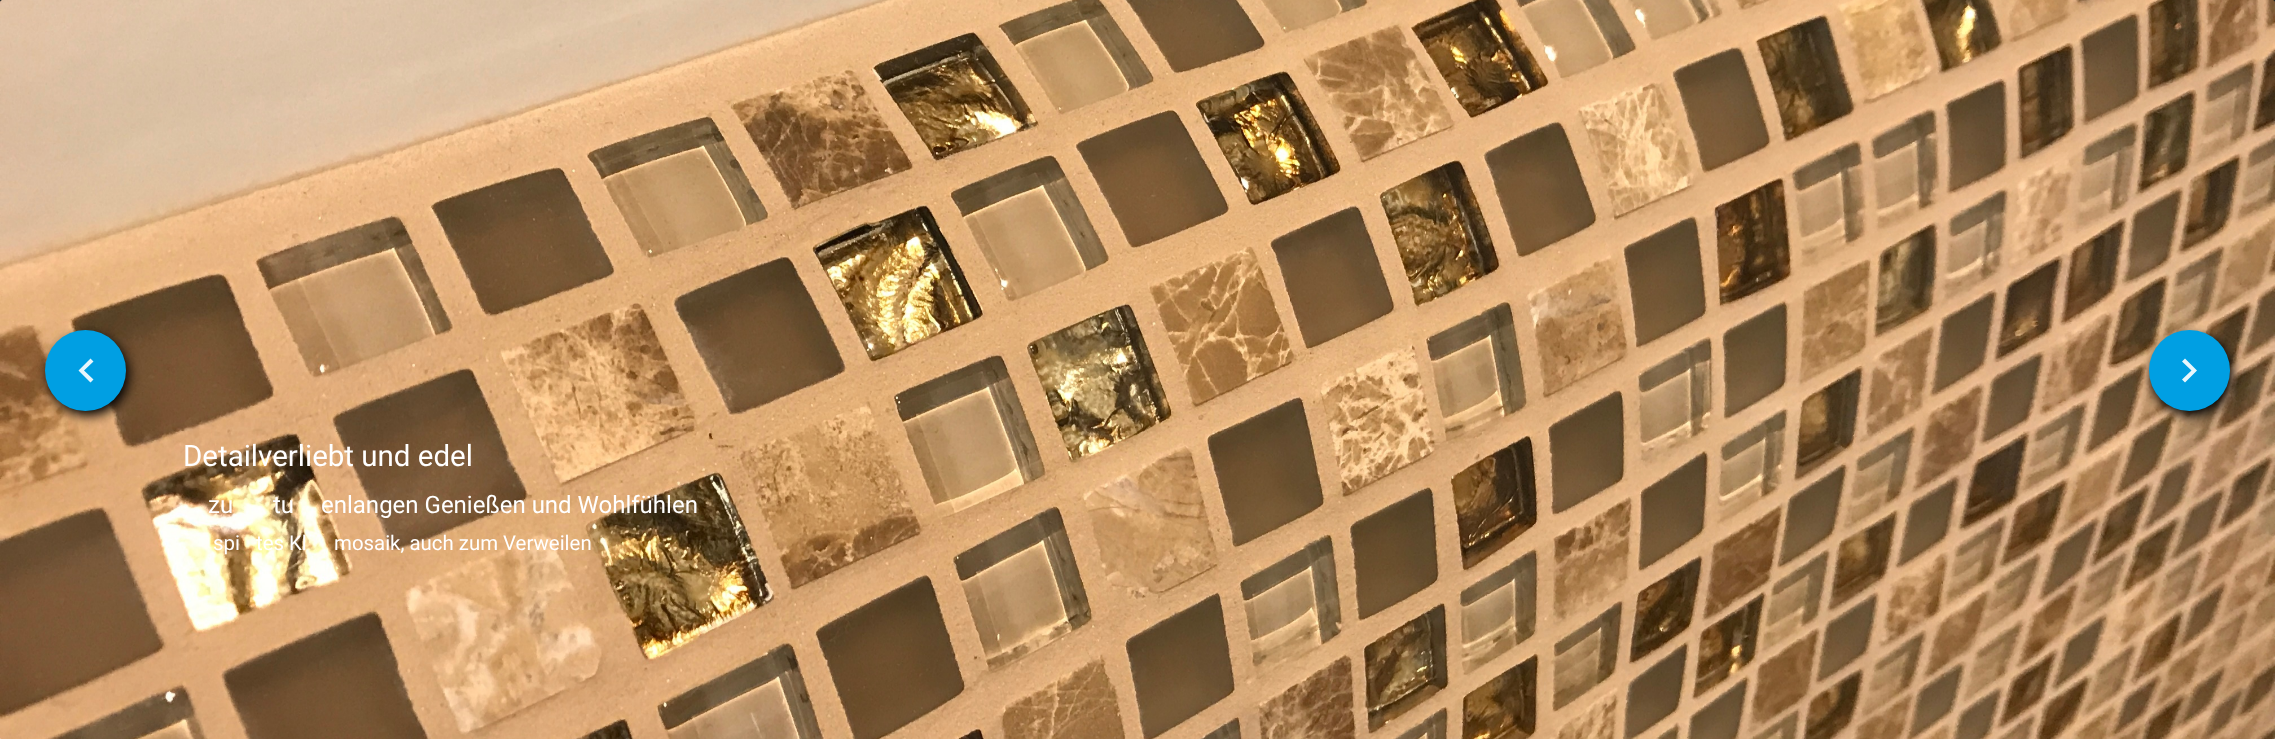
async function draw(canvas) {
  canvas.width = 2275;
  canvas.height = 739;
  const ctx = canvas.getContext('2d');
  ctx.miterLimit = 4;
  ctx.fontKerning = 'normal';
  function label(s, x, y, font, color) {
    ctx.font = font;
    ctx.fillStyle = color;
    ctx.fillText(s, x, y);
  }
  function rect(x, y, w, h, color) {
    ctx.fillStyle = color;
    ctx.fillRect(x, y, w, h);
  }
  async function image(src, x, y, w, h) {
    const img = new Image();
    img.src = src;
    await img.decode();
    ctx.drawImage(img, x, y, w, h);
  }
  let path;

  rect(0, 0, 2275, 739, '#fff');
  rect(0, 0, 2275, 3, '#13191c');
  await image('assets/img1.png', 0, 0, 2275, 739);
  ctx.fillStyle = '#000';
  ctx.filter = 'blur(6px)';
  ctx.beginPath();
  ctx.roundRect(48, 335, 81, 81, 40.5);
  ctx.fill();
  ctx.filter = 'none';
  ctx.fillStyle = '#009fe3';
  ctx.beginPath();
  ctx.arc(85.5, 370.5, 40.5, 0, 2 * Math.PI);
  ctx.fill();
  ctx.fillStyle = '#e8f6fc';
  path = new Path2D('M93.5 379.5L90.5 382.5L78.5 370.5L90.5 358.5L93.5 361.5L84 370.5Z');
  ctx.fill(path);
  ctx.fillStyle = '#000';
  ctx.filter = 'blur(6px)';
  ctx.beginPath();
  ctx.roundRect(2151, 335, 82, 81, 40.5);
  ctx.fill();
  ctx.filter = 'none';
  ctx.fillStyle = '#009fe3';
  ctx.beginPath();
  ctx.arc(2189.5, 370.5, 40.5, 0, 2 * Math.PI);
  ctx.fill();
  ctx.fillStyle = '#e8f6fc';
  path = new Path2D('M2182 379.5L2191.5 370.5L2182 361.5L2185 358.5L2197 370.5L2185 382.5Z');
  ctx.fill(path);
  label('Detailverliebt und edel', 183, 466, '29.5px Roboto', '#fff');
  label('zu', 208, 513, '24px Roboto', '#fff');
  label('tu', 273, 513, '24px Roboto', '#fff');
  label('enlangen Genießen und Wohlfühlen', 321, 513, '24px Roboto', '#fff');
  label('spi', 213, 550, '20.4px Roboto', '#fff');
  label('tes Kl', 256, 550, '20.4px Roboto', '#fff');
  label('mosaik, auch zum Verweilen', 334, 550, '20.4px Roboto', '#fff');
}

draw(document.querySelector('canvas'));
